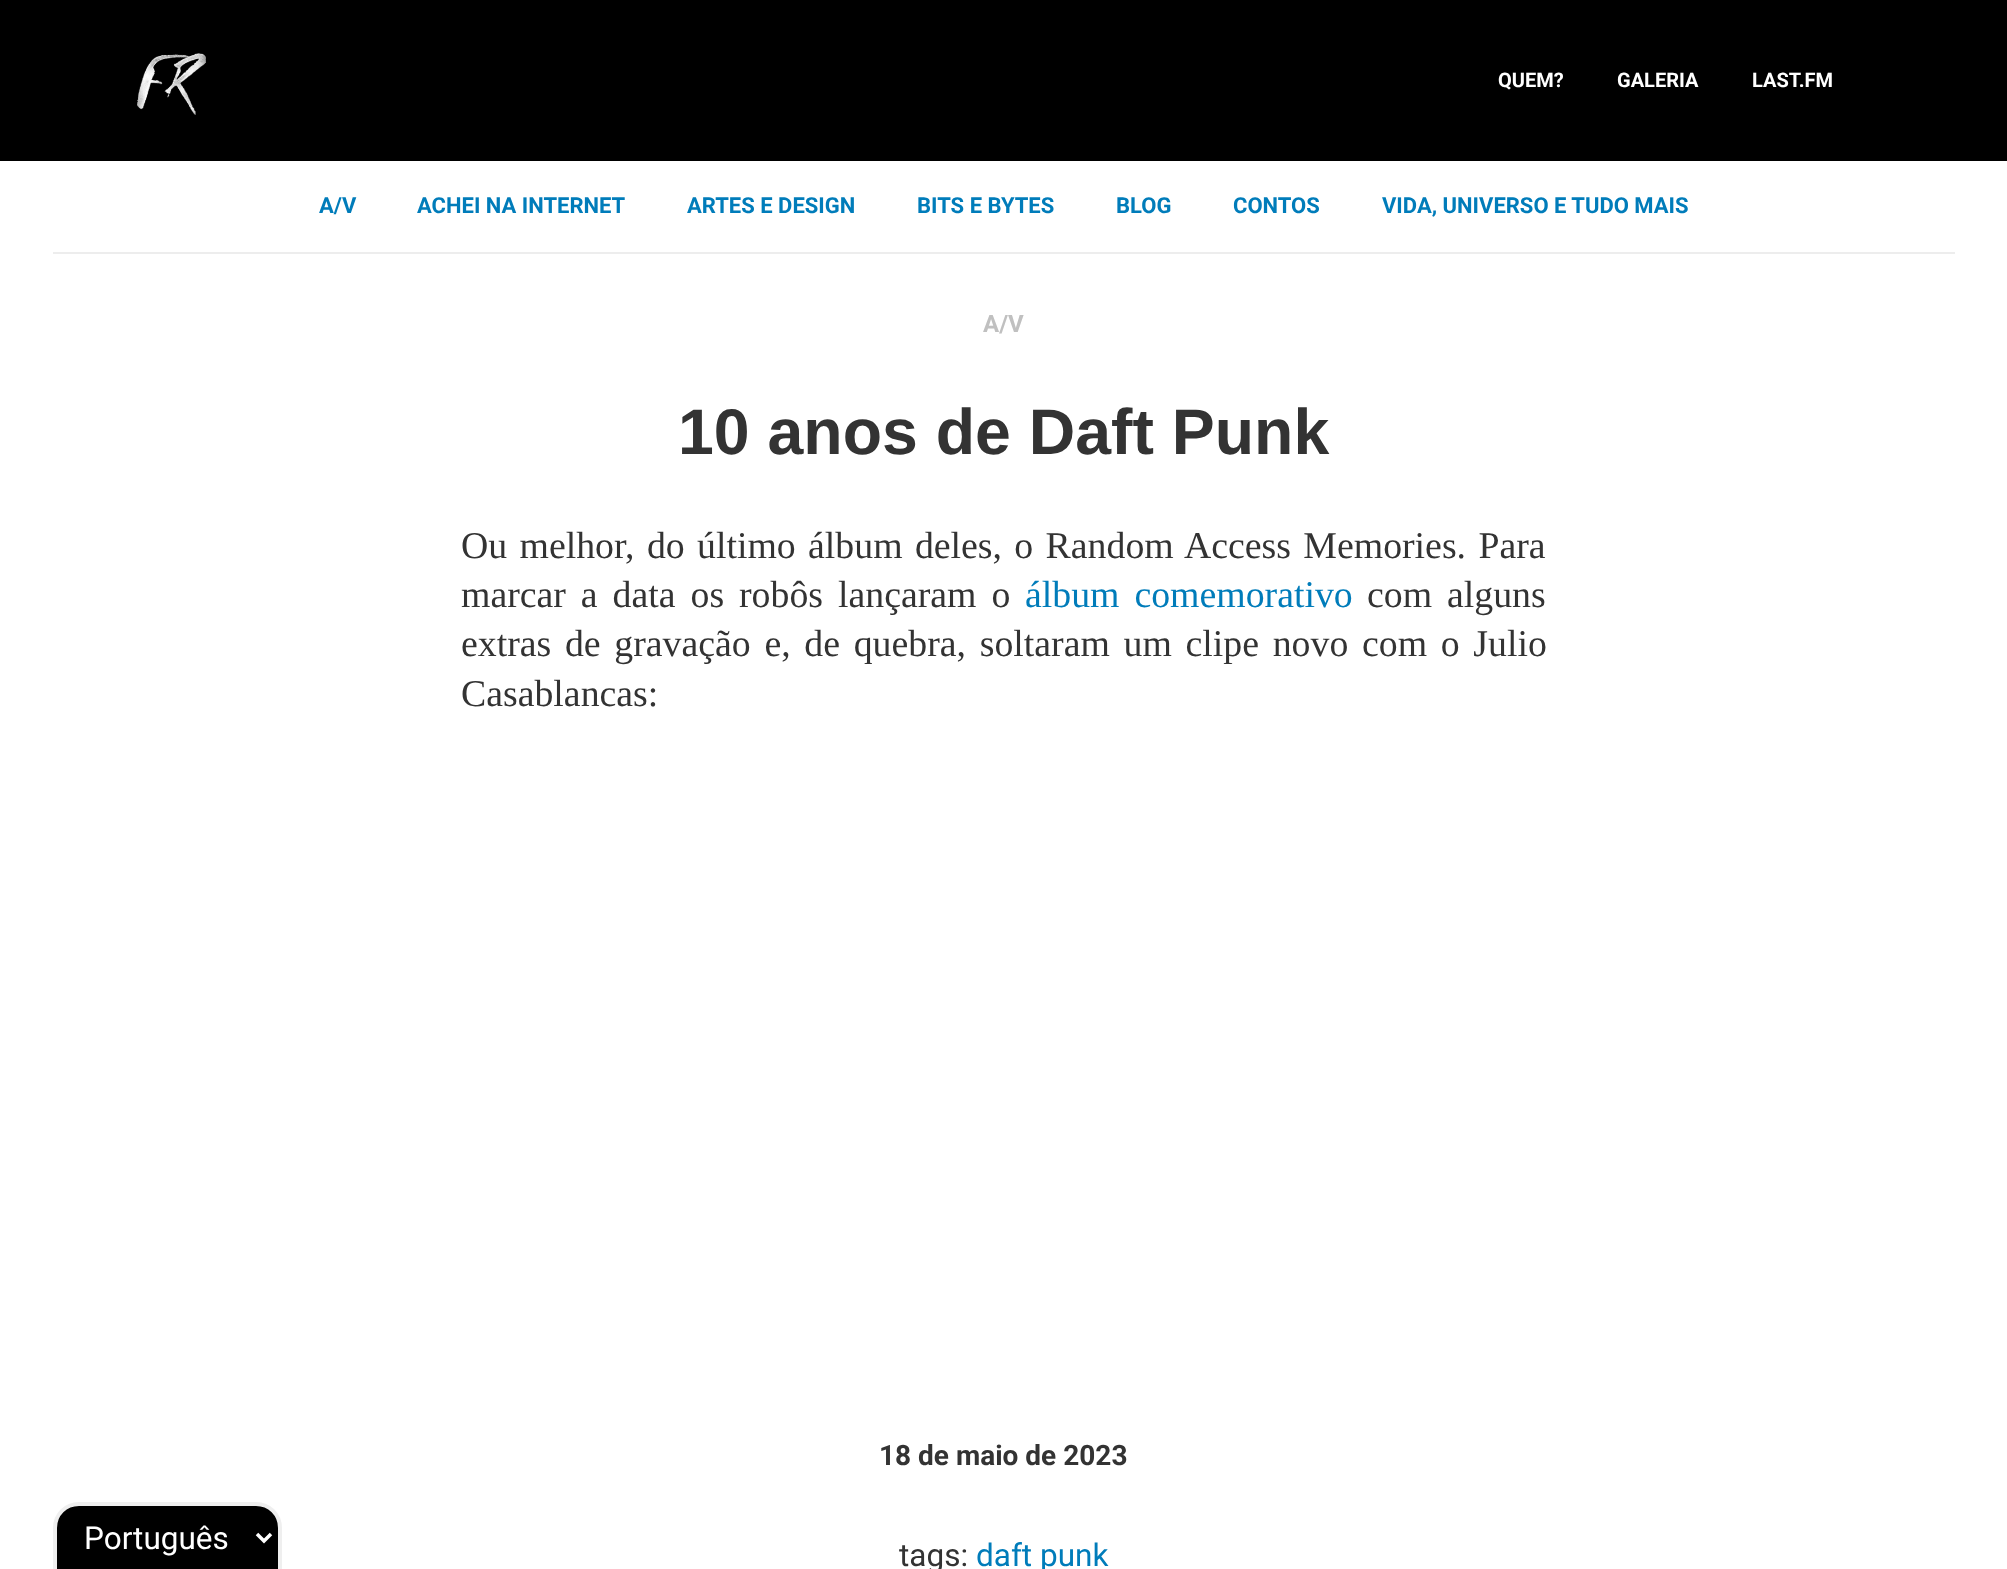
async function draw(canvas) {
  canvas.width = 2007;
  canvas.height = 1569;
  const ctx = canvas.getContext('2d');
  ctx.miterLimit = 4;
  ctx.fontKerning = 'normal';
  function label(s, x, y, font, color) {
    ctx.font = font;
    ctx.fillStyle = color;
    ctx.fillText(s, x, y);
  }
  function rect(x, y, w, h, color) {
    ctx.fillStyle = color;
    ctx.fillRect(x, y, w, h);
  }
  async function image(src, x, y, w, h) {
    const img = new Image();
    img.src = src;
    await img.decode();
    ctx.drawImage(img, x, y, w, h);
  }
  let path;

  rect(0, 0, 2007, 1569, '#fff');
  rect(0, 0, 2007, 161, '#000');
  await image('assets/img1.png', 137, 53, 69, 62);
  label('QUEM?', 1498, 87, 'bold 20px Roboto', '#fff');
  label('GALERIA', 1617, 87, 'bold 20px Roboto', '#fff');
  label('LAST.FM', 1752, 87, 'bold 20px Roboto', '#fff');
  rect(53, 252, 1902, 2, '#ededed');
  label('A/V', 319, 213, 'bold 22px Roboto', '#007cba');
  label('ACHEI NA INTERNET', 417, 213, 'bold 22px Roboto', '#007cba');
  label('ARTES E DESIGN', 687, 213, 'bold 22px Roboto', '#007cba');
  label('BITS E BYTES', 917, 213, 'bold 22px Roboto', '#007cba');
  label('BLOG', 1116, 213, 'bold 22px Roboto', '#007cba');
  label('CONTOS', 1233, 213, 'bold 22px Roboto', '#007cba');
  label('VIDA, UNIVERSO E TUDO MAIS', 1382, 213, 'bold 22px Roboto', '#007cba');
  label('A/V', 983, 332, 'bold 24px Roboto', '#c0c0c0');
  label('10 anos de Daft Punk', 678, 454, 'bold 64.4px Liberation Sans', '#333');
  ctx.wordSpacing = '2.9px';
  label('Ou melhor, do último álbum deles, o Random Access Memories. Para', 461, 558, '37.8px Liberation Serif', '#333');
  ctx.wordSpacing = '5.5px';
  label('marcar a data os robôs lançaram o', 461, 607, '37.8px Liberation Serif', '#333');
  label('álbum comemorativo', 1025, 607, '37.8px Liberation Serif', '#007cba');
  label('com alguns', 1367, 607, '37.8px Liberation Serif', '#333');
  ctx.wordSpacing = '4.25px';
  label('extras de gravação e, de quebra, soltaram um clipe novo com o Julio', 461, 656, '37.8px Liberation Serif', '#333');
  ctx.wordSpacing = '0px';
  label('Casablancas:', 461, 706, '37.8px Liberation Serif', '#333');
  label('18 de maio de 2023', 879, 1465, 'bold 28px Roboto', '#333');
  ctx.fillStyle = '#000';
  path = new Path2D('M79 1504H256C269.5 1504 280 1514.5 280 1528V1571H55V1528C55 1514.5 65.5 1504 79 1504Z');
  ctx.fill(path);
  ctx.strokeStyle = '#efefef';
  ctx.lineWidth = 4;
  ctx.stroke(path);
  path = new Path2D('M257 1534L264 1541L271 1534');
  ctx.strokeStyle = '#fff';
  ctx.lineWidth = 3.5;
  ctx.stroke(path);
  label('Português', 84, 1549, '31.5px Roboto', '#fff');
  label('tags:', 899, 1566, '31.5px Roboto', '#333');
  label('daft punk', 976, 1566, '31.5px Roboto', '#007cba');
}

draw(document.querySelector('canvas'));
